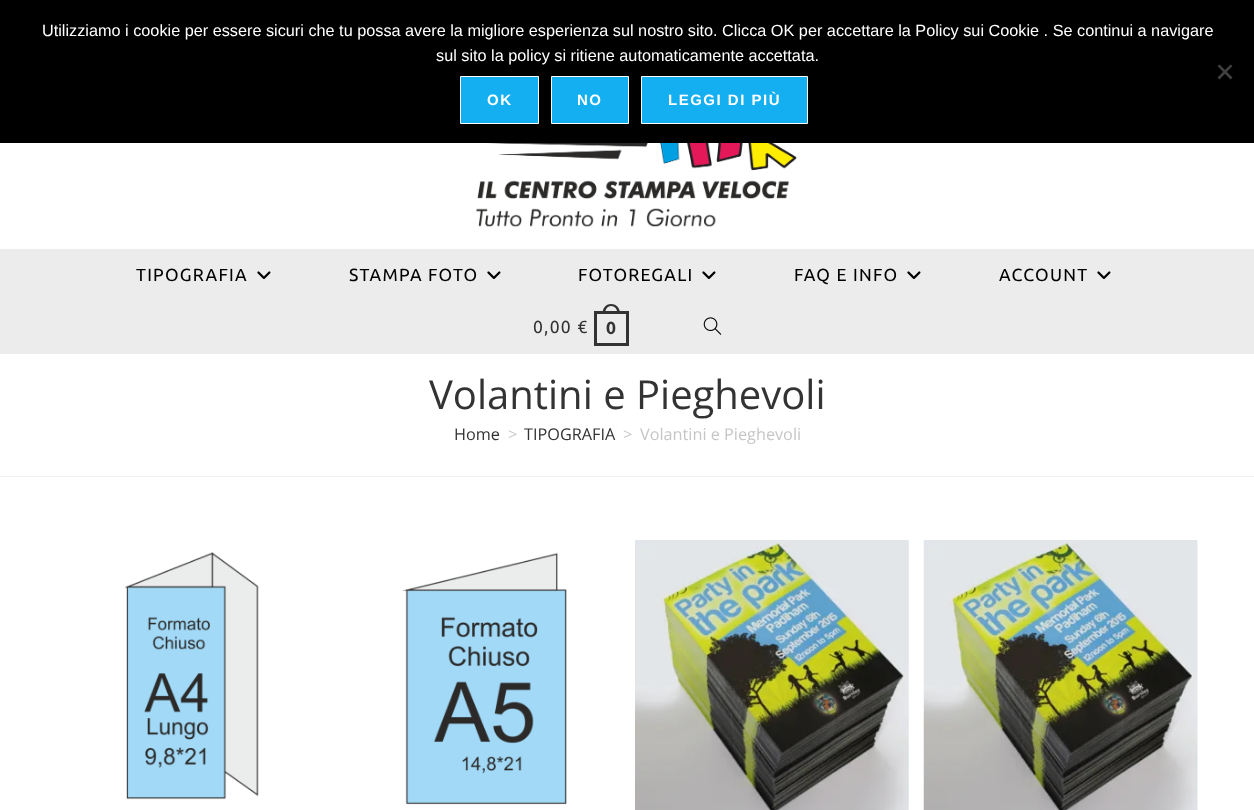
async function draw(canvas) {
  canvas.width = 1254;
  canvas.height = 810;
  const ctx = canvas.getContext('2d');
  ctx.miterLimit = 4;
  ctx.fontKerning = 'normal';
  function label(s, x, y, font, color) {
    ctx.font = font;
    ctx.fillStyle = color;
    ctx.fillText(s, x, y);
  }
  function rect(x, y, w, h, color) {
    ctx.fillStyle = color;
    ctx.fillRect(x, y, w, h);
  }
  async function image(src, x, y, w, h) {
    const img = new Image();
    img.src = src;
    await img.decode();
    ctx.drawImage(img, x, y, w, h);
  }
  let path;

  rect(0, 0, 1254, 810, '#fff');
  rect(0, 0, 1254, 143, '#000');
  label('Utilizziamo i cookie per essere sicuri che tu possa avere la migliore esperienza sul nostro sito. Clicca OK per accettare la Policy sui Cookie . Se continui a navigare', 42, 36, '16.25px Liberation Sans', '#fff');
  label('sul sito la policy si ritiene automaticamente accettata.', 436, 61, '16.25px Liberation Sans', '#fff');
  ctx.fillStyle = '#404040';
  path = new Path2D('M1230.5 64.5L1232.5 66L1219.5 79.5L1217.5 77.5Z');
  ctx.fill(path);
  path = new Path2D('M1217.5 66L1219.5 64.5L1232.5 77.5L1230.5 79.5Z');
  ctx.fill(path);
  ctx.fillStyle = '#13aff0';
  ctx.beginPath();
  ctx.rect(460.5, 76.5, 78, 47);
  ctx.fill();
  ctx.strokeStyle = '#fff';
  ctx.stroke();
  ctx.letterSpacing = '1.5px';
  label('OK', 487, 105, 'bold 15px Liberation Sans', '#fff');
  ctx.fillStyle = '#13aff0';
  ctx.beginPath();
  ctx.rect(551.5, 76.5, 77, 47);
  ctx.fill();
  ctx.stroke();
  label('NO', 577, 105, 'bold 15px Liberation Sans', '#fff');
  ctx.fillStyle = '#13aff0';
  ctx.beginPath();
  ctx.rect(641.5, 76.5, 166, 47);
  ctx.fill();
  ctx.stroke();
  label('LEGGI DI PIÙ', 668, 105, 'bold 15px Liberation Sans', '#fff');
  await image('assets/img1.png', 476, 143, 321, 84);
  rect(0, 249, 1254, 105, '#ececec');
  ctx.letterSpacing = '1.25px';
  label('TIPOGRAFIA', 136, 281, '17.5px Ubuntu', '#000');
  await image('assets/img2.png', 257, 271, 14, 8);
  label('STAMPA FOTO', 349, 281, '17.5px Ubuntu', '#000');
  await image('assets/img2.png', 487, 271, 14, 8);
  label('FOTOREGALI', 578, 281, '17.5px Ubuntu', '#000');
  await image('assets/img2.png', 702, 271, 14, 8);
  label('FAQ E INFO', 794, 281, '17.5px Ubuntu', '#000');
  await image('assets/img2.png', 907, 271, 14, 8);
  label('ACCOUNT', 999, 281, '17.5px Ubuntu', '#000');
  await image('assets/img2.png', 1097, 271, 14, 8);
  label('0,00 €', 533, 333, '17.5px Ubuntu', '#333');
  ctx.strokeStyle = '#333';
  ctx.lineWidth = 3;
  ctx.strokeRect(595.5, 312.5, 32, 32);
  path = new Path2D('M611 304C617 304 620 308.5 620 314H602.5C602.5 308.5 605.5 304 611 304ZM611 306C615.5 306 617.5 310 617.5 314H605C605 310 607 306 611 306Z');
  ctx.fill(path, 'evenodd');
  label('0', 606, 334, 'bold 17.5px Ubuntu', '#333');
  await image('assets/img3.png', 703, 317, 19, 18);
  rect(0, 476, 1254, 1, '#f1f1f1');
  ctx.letterSpacing = '0px';
  label('Volantini e Pieghevoli', 429, 409, '40px Open Sans', '#333');
  label('Home', 454, 440, '16.25px Open Sans', '#333');
  label('>', 508, 440, '16.25px Open Sans', '#c6c6c6');
  label('TIPOGRAFIA', 524, 440, '16.25px Open Sans', '#333');
  label('>', 623, 440, '16.25px Open Sans', '#c6c6c6');
  label('Volantini e Pieghevoli', 640, 440, '16.25px Open Sans', '#c6c6c6');
  await image('assets/img4.png', 124, 552, 135, 248);
  await image('assets/img5.png', 402, 552, 165, 253);
  await image('assets/img6.png', 635, 540, 274, 270);
  await image('assets/img7.png', 923, 540, 275, 270);
}

draw(document.querySelector('canvas'));
